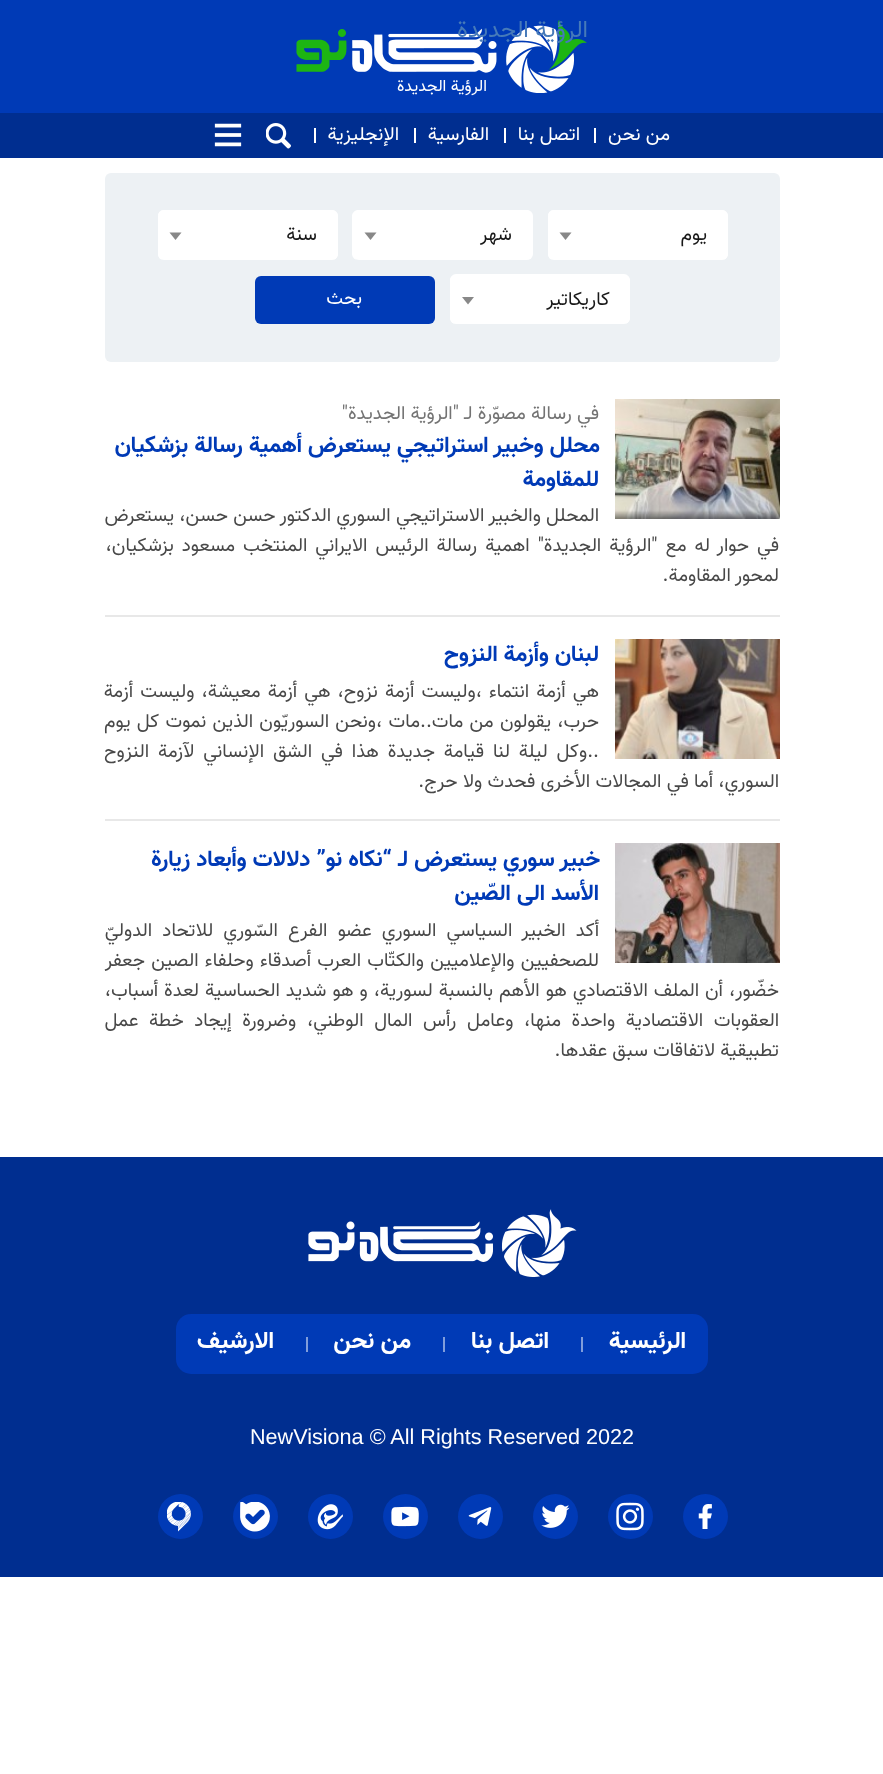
async function draw(canvas) {
  canvas.width = 883;
  canvas.height = 1774;
  const ctx = canvas.getContext('2d');
  ctx.miterLimit = 4;
  ctx.fontKerning = 'normal';
  function label(s, x, y, font, color) {
    ctx.font = font;
    ctx.fillStyle = color;
    ctx.fillText(s, x, y);
  }
  function rect(x, y, w, h, color) {
    ctx.fillStyle = color;
    ctx.fillRect(x, y, w, h);
  }
  function roundedRect(x, y, w, h, r, color) {
    ctx.fillStyle = color;
    ctx.beginPath();
    ctx.roundRect(x, y, w, h, r);
    ctx.fill();
  }
  async function image(src, x, y, w, h) {
    const img = new Image();
    img.src = src;
    await img.decode();
    ctx.drawImage(img, x, y, w, h);
  }
  let path;

  rect(0, 0, 883, 1774, '#fff');
  rect(0, 0, 883, 113, '#003ab6');
  await image('assets/img1.png', 296, 20, 291, 73);
  ctx.direction = 'rtl';
  label('الرؤية الجديدة', 588, 37, '24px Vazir', '#467ab9');
  label('الرؤية الجديدة', 487, 91, '16.5px Vazir', '#fff');
  rect(0, 113, 883, 45, '#002e90');
  label('من نحن', 670, 140, '19.2px Vazir', '#fff');
  rect(594, 128, 2, 15, '#fff');
  label('اتصل بنا', 580, 140, '19.2px Vazir', '#fff');
  rect(504, 128, 2, 15, '#fff');
  label('الفارسية', 489, 140, '19.2px Vazir', '#fff');
  rect(414, 128, 2, 15, '#fff');
  label('الإنجليزية', 399, 140, '19.2px Vazir', '#fff');
  rect(314, 128, 2, 15, '#fff');
  await image('assets/img2.png', 266, 123, 25, 26);
  await image('assets/img3.png', 214, 123, 28, 24);
  roundedRect(105, 173, 675, 189, 6, '#edf1f4');
  roundedRect(548, 210, 180, 50, 6, '#fff');
  path = new Path2D('M554 210H722C725 210 728 213 728 216V254C728 257 725 260 722 260H554C550 260 548 257 548 254V216C548 213 550 210 554 210ZM554 212H722C724 212 726 214 726 216V254C726 257 724 260 722 260H554C551 260 549 257 549 254V216C549 214 551 212 554 212Z');
  ctx.fill(path, 'evenodd');
  label('يوم', 707, 240, '19.2px Vazir', '#181818');
  ctx.fillStyle = '#888';
  path = new Path2D('M559.5 232.5H571.5L565.5 240Z');
  ctx.fill(path);
  roundedRect(353, 210, 180, 50, 6, '#fff');
  path = new Path2D('M358 210H526C530 210 532 213 532 216V254C532 257 530 260 526 260H358C355 260 352 257 352 254V216C352 213 355 210 358 210ZM358 212H526C529 212 531 214 531 216V254C531 257 529 260 526 260H358C356 260 354 257 354 254V216C354 214 356 212 358 212Z');
  ctx.fill(path, 'evenodd');
  label('شهر', 512, 240, '19.2px Vazir', '#181818');
  ctx.fillStyle = '#888';
  path = new Path2D('M364.5 232.5H376.5L370.5 240Z');
  ctx.fill(path);
  roundedRect(158, 210, 180, 50, 6, '#fff');
  path = new Path2D('M164 210H332C335 210 338 213 338 216V254C338 257 335 260 332 260H164C160 260 158 257 158 254V216C158 213 160 210 164 210ZM164 212H332C334 212 336 214 336 216V254C336 257 334 260 332 260H164C161 260 159 257 159 254V216C159 214 161 212 164 212Z');
  ctx.fill(path, 'evenodd');
  label('سنة', 317, 240, '19.2px Vazir', '#181818');
  ctx.fillStyle = '#888';
  path = new Path2D('M169.5 232.5H181.5L175.5 240Z');
  ctx.fill(path);
  roundedRect(450, 275, 180, 49, 6, '#fff');
  path = new Path2D('M456 274H624C627 274 630 277 630 280V318C630 321 627 324 624 324H456C453 324 450 321 450 318V280C450 277 453 274 456 274ZM456 276H624C626 276 628 278 628 280V318C628 321 626 324 624 324H456C454 324 452 321 452 318V280C452 278 454 276 456 276Z');
  ctx.fill(path, 'evenodd');
  label('كاريكاتير', 610, 305, '19.2px Vazir', '#181818');
  ctx.fillStyle = '#888';
  path = new Path2D('M462 297H474L468 304.5Z');
  ctx.fill(path);
  roundedRect(255, 276, 180, 48, 6, '#003ab6');
  label('بحث', 362, 304, '19.2px Vazir', '#fff');
  rect(105, 615, 675, 2, '#e8e8e8');
  await image('assets/img4.png', 615, 399, 165, 120);
  label('في رسالة مصوّرة لـ "الرؤية الجديدة"', 599, 419, '19.2px Vazir', '#737373');
  label('محلل وخبير استراتيجي يستعرض أهمية رسالة بزشكيان', 600, 452, 'bold 22.8px Vazir', '#003ab6');
  label('للمقاومة', 599, 486, 'bold 22.8px Vazir', '#003ab6');
  label('المحلل والخبير الاستراتيجي السوري الدكتور حسن حسن، يستعرض', 599, 521, '19.2px Vazir', '#484848');
  ctx.wordSpacing = '2.75px';
  label('في حوار له مع "الرؤية الجديدة" اهمية رسالة الرئيس الايراني المنتخب مسعود بزشكيان،', 779, 551, '19.2px Vazir', '#484848');
  ctx.wordSpacing = '0px';
  label('لمحور المقاومة.', 779, 581, '19.2px Vazir', '#484848');
  rect(105, 819, 675, 2, '#e8e8e8');
  await image('assets/img5.png', 615, 639, 165, 120);
  label('لبنان وأزمة النزوح', 599, 661, 'bold 22.8px Vazir', '#003ab6');
  ctx.wordSpacing = '1.75px';
  label('هي أزمة انتماء ،وليست أزمة نزوح، هي أزمة معيشة، وليست أزمة', 599, 697, '19.2px Vazir', '#484848');
  ctx.wordSpacing = '1px';
  label('حرب، يقولون من مات..مات ،ونحن السوريّون الذين نموت كل يوم', 599, 727, '19.2px Vazir', '#484848');
  ctx.wordSpacing = '3.6px';
  label('..وكل ليلة لنا قيامة جديدة هذا في الشق الإنساني لآزمة النزوح', 599, 757, '19.2px Vazir', '#484848');
  ctx.wordSpacing = '0px';
  label('السوري، أما في المجالات الأخرى فحدث ولا حرج.', 779, 787, '19.2px Vazir', '#484848');
  await image('assets/img6.png', 615, 843, 165, 120);
  label('خبير سوري يستعرض لـ “نكاه نو” دلالات وأبعاد زيارة', 600, 866, 'bold 22.8px Vazir', '#003ab6');
  label('الأسد الى الصّين', 599, 900, 'bold 22.8px Vazir', '#003ab6');
  ctx.wordSpacing = '5px';
  label('أكد الخبير السياسي السوري عضو الفرع السّوري للاتحاد الدوليّ', 599, 936, '19.2px Vazir', '#484848');
  ctx.wordSpacing = '1px';
  label('للصحفيين والإعلاميين والكتّاب العرب أصدقاء وحلفاء الصين جعفر', 599, 966, '19.2px Vazir', '#484848');
  ctx.wordSpacing = '0.75px';
  label('خضّور، أن الملف الاقتصادي هو الأهم بالنسبة لسورية، و هو شديد الحساسية لعدة أسباب،', 779, 996, '19.2px Vazir', '#484848');
  ctx.wordSpacing = '5.4px';
  label('العقوبات الاقتصادية واحدة منها، وعامل رأس المال الوطني، وضرورة إيجاد خطة عمل', 779, 1026, '19.2px Vazir', '#484848');
  ctx.wordSpacing = '0px';
  label('تطبيقية لاتفاقات سبق عقدها.', 779, 1056, '19.2px Vazir', '#484848');
  rect(0, 1157, 883, 420, '#002e90');
  await image('assets/img7.png', 308, 1209, 269, 68);
  roundedRect(176, 1314, 532, 60, 15, '#003ab6');
  label('الرئيسية', 686, 1348, 'bold 24px Vazir', '#fff');
  rect(581, 1337, 2, 15, '#809ddb');
  label('اتصل بنا', 549, 1348, 'bold 24px Vazir', '#fff');
  rect(443, 1337, 2, 15, '#809ddb');
  label('من نحن', 411, 1348, 'bold 24px Vazir', '#fff');
  rect(306, 1337, 2, 15, '#809ddb');
  label('الارشيف', 274, 1348, 'bold 24px Vazir', '#fff');
  ctx.direction = 'ltr';
  label('NewVisiona © All Rights Reserved 2022', 250, 1444, '21.6px Liberation Sans', '#fff');
  ctx.fillStyle = '#003ab6';
  ctx.beginPath();
  ctx.arc(705.5, 1516.5, 22.5, 0, 2 * Math.PI);
  ctx.fill();
  await image('assets/img8.png', 698, 1504, 14, 25);
  ctx.beginPath();
  ctx.arc(630.5, 1516.5, 22.5, 0, 2 * Math.PI);
  ctx.fill();
  await image('assets/img9.png', 616, 1502, 28, 29);
  ctx.beginPath();
  ctx.arc(555.5, 1516.5, 22.5, 0, 2 * Math.PI);
  ctx.fill();
  await image('assets/img10.png', 541, 1504, 29, 24);
  ctx.beginPath();
  ctx.arc(480.5, 1516.5, 22.5, 0, 2 * Math.PI);
  ctx.fill();
  await image('assets/img11.png', 468, 1507, 24, 19);
  ctx.beginPath();
  ctx.arc(405.5, 1516.5, 22.5, 0, 2 * Math.PI);
  ctx.fill();
  await image('assets/img12.png', 391, 1506, 28, 21);
  ctx.beginPath();
  ctx.arc(330.5, 1516.5, 22.5, 0, 2 * Math.PI);
  ctx.fill();
  await image('assets/img13.png', 317, 1504, 26, 26);
  ctx.beginPath();
  ctx.arc(255.5, 1516.5, 22.5, 0, 2 * Math.PI);
  ctx.fill();
  await image('assets/img14.png', 240, 1502, 30, 30);
  ctx.beginPath();
  ctx.arc(180.5, 1516.5, 22.5, 0, 2 * Math.PI);
  ctx.fill();
  await image('assets/img15.png', 167, 1502, 24, 30);
}

draw(document.querySelector('canvas'));
